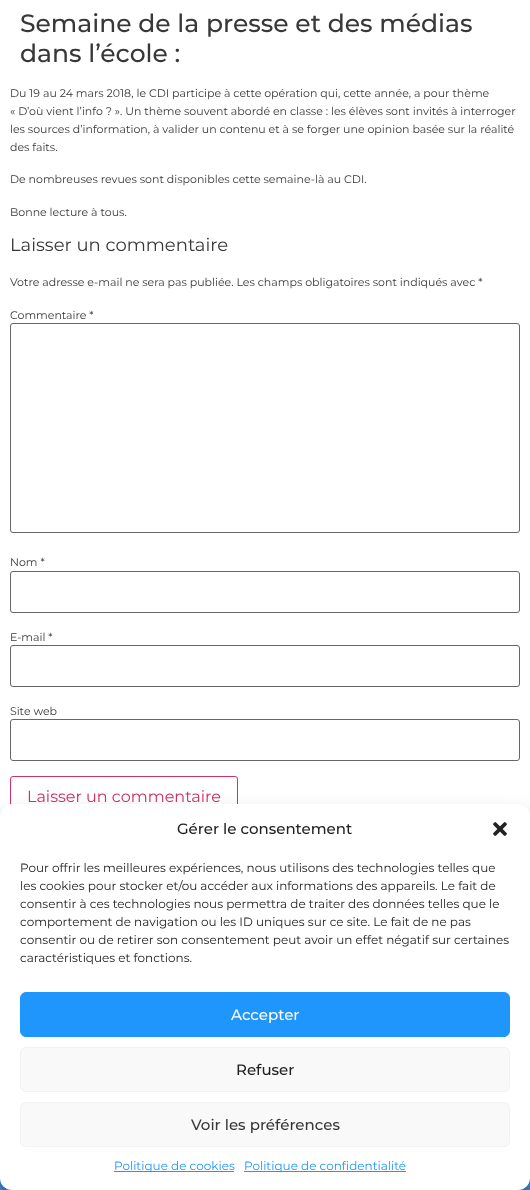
async function draw(canvas) {
  canvas.width = 530;
  canvas.height = 1190;
  const ctx = canvas.getContext('2d');
  ctx.miterLimit = 4;
  ctx.fontKerning = 'normal';
  function label(s, x, y, font, color) {
    ctx.font = font;
    ctx.fillStyle = color;
    ctx.fillText(s, x, y);
  }
  function rect(x, y, w, h, color) {
    ctx.fillStyle = color;
    ctx.fillRect(x, y, w, h);
  }
  function roundedRect(x, y, w, h, r, color) {
    ctx.fillStyle = color;
    ctx.beginPath();
    ctx.roundRect(x, y, w, h, r);
    ctx.fill();
  }
  async function image(src, x, y, w, h) {
    const img = new Image();
    img.src = src;
    await img.decode();
    ctx.drawImage(img, x, y, w, h);
  }

  rect(0, 0, 530, 1190, '#fff');
  label('Semaine de la presse et des médias', 20, 32, '500 25px Montserrat', '#383838');
  label('dans l’école :', 20, 62, '500 25px Montserrat', '#383838');
  label('Du 19 au 24 mars 2018, le CDI participe à cette opération qui, cette année, a pour thème', 10, 97, '11px Montserrat', '#383838');
  label('« D’où vient l’info ? ». Un thème souvent abordé en classe : les élèves sont invités à interroger', 10, 115, '11px Montserrat', '#383838');
  label('les sources d’information, à valider un contenu et à se forger une opinion basée sur la réalité', 10, 133, '11px Montserrat', '#383838');
  label('des faits.', 10, 151, '11px Montserrat', '#383838');
  label('De nombreuses revues sont disponibles cette semaine-là au CDI.', 10, 183, '11px Montserrat', '#383838');
  label('Bonne lecture à tous.', 10, 216, '11px Montserrat', '#383838');
  label('Laisser un commentaire', 10, 251, '18px Montserrat', '#383838');
  label('Votre adresse e-mail ne sera pas publiée. Les champs obligatoires sont indiqués avec *', 10, 286, '11px Montserrat', '#383838');
  label('Commentaire *', 10, 319, '11px Montserrat', '#383838');
  ctx.beginPath();
  ctx.roundRect(10.5, 323.5, 509, 209, 2.5);
  ctx.strokeStyle = '#666';
  ctx.stroke();
  label('Nom *', 10, 566, '11px Montserrat', '#383838');
  ctx.beginPath();
  ctx.roundRect(10.5, 571.5, 509, 41, 2.5);
  ctx.stroke();
  label('E-mail *', 10, 641, '11px Montserrat', '#383838');
  ctx.beginPath();
  ctx.roundRect(10.5, 645.5, 509, 41, 2.5);
  ctx.stroke();
  label('Site web', 10, 715, '11px Montserrat', '#383838');
  ctx.beginPath();
  ctx.roundRect(10.5, 719.5, 509, 41, 2.5);
  ctx.stroke();
  ctx.beginPath();
  ctx.roundRect(10.5, 776.5, 227, 41, 2.5);
  ctx.strokeStyle = '#c36';
  ctx.stroke();
  label('Laisser un commentaire', 27, 802, '16px Montserrat', '#c36');
  rect(0, 1178, 530, 12, '#4992e8');
  ctx.fillStyle = '#0000003b';
  ctx.filter = 'blur(3px)';
  ctx.beginPath();
  ctx.roundRect(0, 810, 530, 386, 12);
  ctx.fill();
  ctx.filter = 'none';
  ctx.fillStyle = '#00000030';
  ctx.filter = 'blur(10px)';
  ctx.beginPath();
  ctx.roundRect(0, 814, 530, 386, 12);
  ctx.fill();
  ctx.filter = 'none';
  roundedRect(0, 804, 530, 386, 12, '#fff');
  label('Gérer le consentement', 177, 834, '500 15px Montserrat', '#222');
  await image('assets/img1.png', 493, 822, 14, 14);
  label('Pour offrir les meilleures expériences, nous utilisons des technologies telles que', 20, 872, '12px Montserrat', '#222');
  label('les cookies pour stocker et/ou accéder aux informations des appareils. Le fait de', 20, 890, '12px Montserrat', '#222');
  label('consentir à ces technologies nous permettra de traiter des données telles que le', 20, 908, '12px Montserrat', '#222');
  label('comportement de navigation ou les ID uniques sur ce site. Le fait de ne pas', 20, 926, '12px Montserrat', '#222');
  label('consentir ou de retirer son consentement peut avoir un effet négatif sur certaines', 20, 944, '12px Montserrat', '#222');
  label('caractéristiques et fonctions.', 20, 962, '12px Montserrat', '#222');
  ctx.fillStyle = '#1e96fc';
  ctx.beginPath();
  ctx.roundRect(20.5, 992.5, 489, 44, 5.5);
  ctx.fill();
  ctx.strokeStyle = '#1e96fc';
  ctx.stroke();
  label('Accepter', 231, 1020, '500 15px Montserrat', '#fff');
  ctx.fillStyle = '#f9f9f9';
  ctx.beginPath();
  ctx.roundRect(20.5, 1047.5, 489, 44, 5.5);
  ctx.fill();
  ctx.strokeStyle = '#f2f2f2';
  ctx.stroke();
  label('Refuser', 236, 1075, '500 15px Montserrat', '#222');
  ctx.fillStyle = '#f9f9f9';
  ctx.beginPath();
  ctx.roundRect(20.5, 1102.5, 489, 44, 5.5);
  ctx.fill();
  ctx.stroke();
  label('Voir les préférences', 191, 1130, '500 15px Montserrat', '#383838');
  rect(114, 1171, 120, 1, '#1e96fc');
  label('Politique de cookies', 114, 1170, '12px Montserrat', '#1e96fc');
  rect(244, 1171, 162, 1, '#1e96fc');
  label('Politique de confidentialité', 244, 1170, '12px Montserrat', '#1e96fc');
}

draw(document.querySelector('canvas'));
